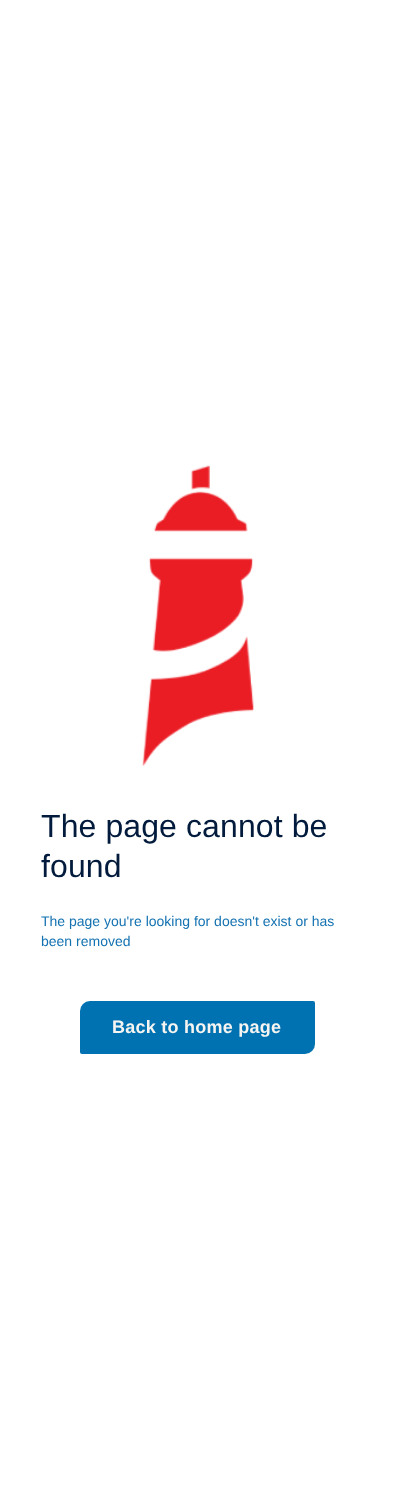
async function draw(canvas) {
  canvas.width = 395;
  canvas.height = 1510;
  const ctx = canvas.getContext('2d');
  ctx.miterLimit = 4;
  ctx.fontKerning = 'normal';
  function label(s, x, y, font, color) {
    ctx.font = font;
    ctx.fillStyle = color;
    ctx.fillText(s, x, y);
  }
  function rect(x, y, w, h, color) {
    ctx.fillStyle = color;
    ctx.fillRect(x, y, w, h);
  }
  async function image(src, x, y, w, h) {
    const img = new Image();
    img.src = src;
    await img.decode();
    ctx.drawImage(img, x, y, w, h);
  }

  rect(0, 0, 395, 1510, '#fff');
  await image('assets/img1.png', 142, 465, 112, 301);
  ctx.letterSpacing = '0.1px';
  label('The page cannot be', 41, 837, '32px Liberation Sans', '#021b3c');
  label('found', 41, 877, '32px Liberation Sans', '#021b3c');
  ctx.letterSpacing = '0px';
  label('The page you\'re looking for doesn\'t exist or has', 41, 926, '14px Liberation Sans', '#1472b1');
  label('been removed', 41, 946, '14px Liberation Sans', '#1472b1');
  ctx.fillStyle = '#0072b1';
  ctx.beginPath();
  ctx.roundRect(80, 1001, 235, 53, [10, 2, 10, 2]);
  ctx.fill();
  ctx.letterSpacing = '0.25px';
  label('Back to home page', 112, 1033, 'bold 18px Liberation Sans', '#f7f5f2');
}

draw(document.querySelector('canvas'));
